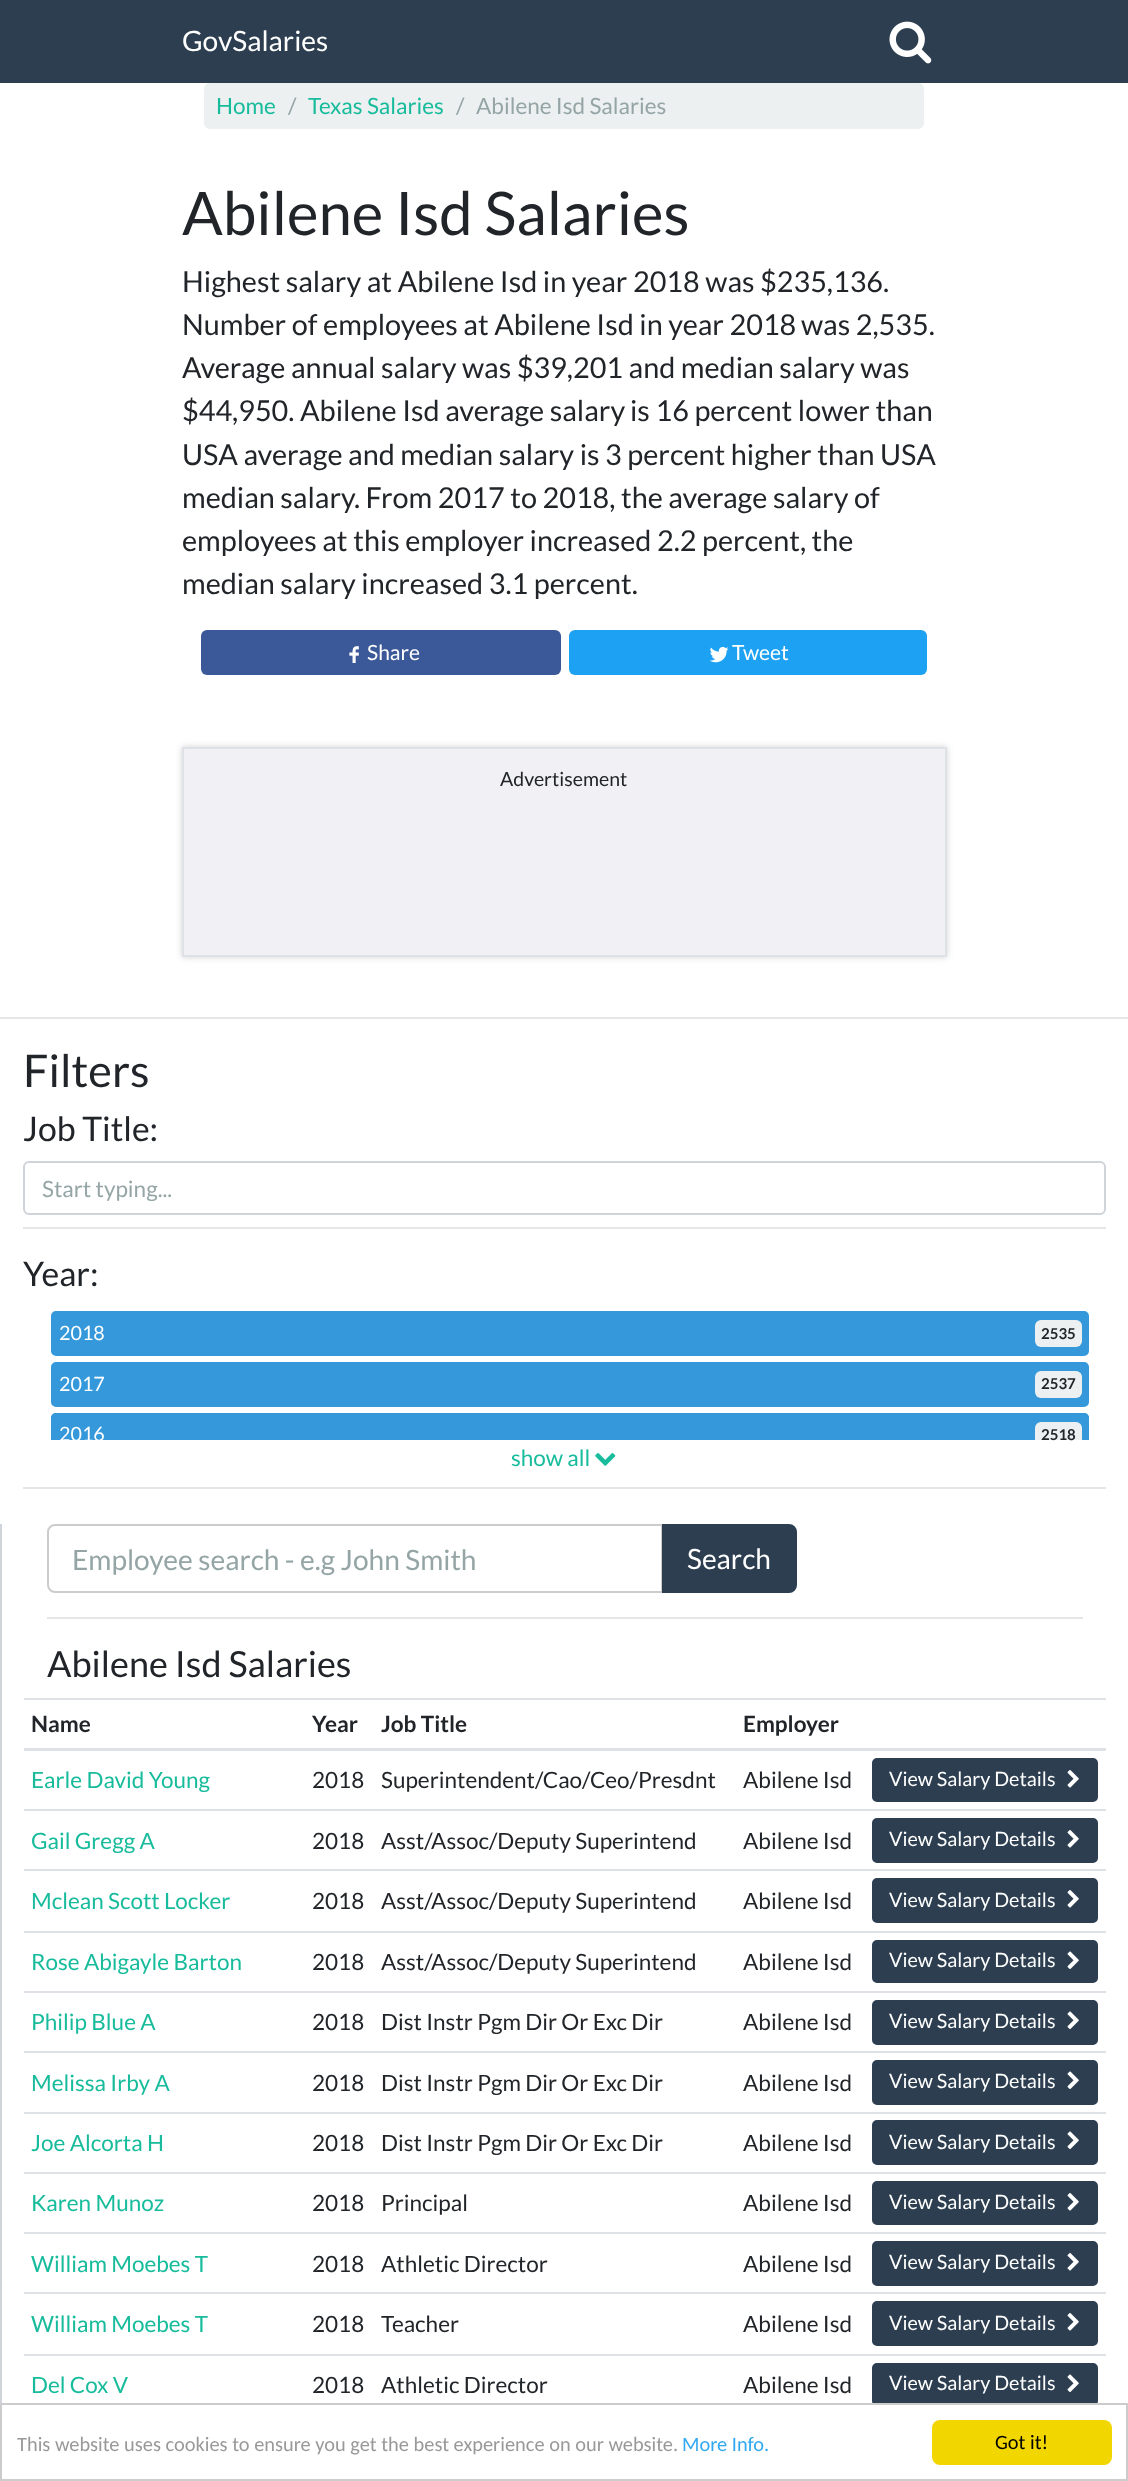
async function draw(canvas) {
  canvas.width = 1128;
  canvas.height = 2481;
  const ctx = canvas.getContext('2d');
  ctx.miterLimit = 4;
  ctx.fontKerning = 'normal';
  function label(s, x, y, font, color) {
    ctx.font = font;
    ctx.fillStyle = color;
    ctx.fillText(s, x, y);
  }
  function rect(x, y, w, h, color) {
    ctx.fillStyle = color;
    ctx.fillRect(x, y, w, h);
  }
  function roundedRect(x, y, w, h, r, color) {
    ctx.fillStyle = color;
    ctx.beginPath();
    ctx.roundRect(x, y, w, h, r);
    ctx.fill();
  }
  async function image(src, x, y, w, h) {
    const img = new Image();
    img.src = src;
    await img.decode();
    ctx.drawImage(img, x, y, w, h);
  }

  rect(0, 0, 1128, 2481, '#fff');
  rect(0, 0, 1128, 83, '#2c3e50');
  label('GovSalaries', 182, 51, '28.1px Lato', '#fff');
  await image('assets/img1.png', 889, 21, 43, 43);
  roundedRect(204, 83, 720, 46, 6, '#ecf0f1');
  label('Home', 216, 114, '22.5px Lato', '#18bc9c');
  label('/', 288, 114, '22.5px Lato', '#95a5a6');
  label('Texas Salaries', 308, 114, '22.5px Lato', '#18bc9c');
  label('/', 456, 114, '22.5px Lato', '#95a5a6');
  label('Abilene Isd Salaries', 476, 114, '22.5px Lato', '#95a5a6');
  label('Abilene Isd Salaries', 182, 235, '60px Lato', '#212529');
  label('Highest salary at Abilene Isd in year 2018 was $235,136.', 182, 292, '28.8px Lato', '#212529');
  label('Number of employees at Abilene Isd in year 2018', 182, 335, '28.8px Lato', '#212529');
  label('was 2,535.', 801, 335, '28.8px Lato', '#212529');
  label('Average annual salary was $39,201 and median salary was', 182, 378, '28.8px Lato', '#212529');
  label('$44,950. Abilene Isd average salary', 182, 421, '28.8px Lato', '#212529');
  label('is 16 percent lower than', 630, 421, '28.8px Lato', '#212529');
  label('USA average and median salary is 3 percent higher than USA', 182, 465, '28.8px Lato', '#212529');
  label('median salary. From 2017 to 2018, the average salary of', 182, 508, '28.8px Lato', '#212529');
  label('employees at this employer increased 2.2 percent, the', 182, 551, '28.8px Lato', '#212529');
  label('median salary increased 3.1 percent.', 182, 594, '28.8px Lato', '#212529');
  roundedRect(201, 630, 360, 45, 6, '#3b5998');
  await image('assets/img2.png', 349, 646, 10, 17);
  label('Share', 367, 660, '21px Lato', '#fff');
  roundedRect(569, 630, 358, 45, 6, '#1da1f2');
  await image('assets/img3.png', 709, 646, 20, 17);
  label('Tweet', 732, 660, '21px Lato', '#fff');
  ctx.fillStyle = '#0000002e';
  ctx.filter = 'blur(3px)';
  ctx.beginPath();
  ctx.rect(182, 747, 765, 210);
  ctx.fill();
  ctx.filter = 'none';
  ctx.fillStyle = '#f0f0f5';
  ctx.beginPath();
  ctx.rect(183, 748, 763, 208);
  ctx.fill();
  ctx.strokeStyle = '#dee2e6';
  ctx.lineWidth = 2;
  ctx.stroke();
  label('Advertisement', 500, 786, '19.5px Lato', '#212529');
  rect(0, 1017, 1128, 2, '#e6e6e6');
  label('Filters', 23, 1087, '45px Lato', '#212529');
  label('Job Title:', 23, 1141, '33.75px Lato', '#212529');
  ctx.beginPath();
  ctx.roundRect(24, 1162, 1081, 52, 5);
  ctx.strokeStyle = '#ced4da';
  ctx.stroke();
  label('Start typing...', 42, 1197, '22.5px Lato', '#95a5a6');
  rect(23, 1227, 1083, 2, '#e6e6e6');
  label('Year:', 23, 1286, '33.75px Lato', '#212529');
  ctx.fillStyle = '#3498db';
  ctx.beginPath();
  ctx.roundRect(52, 1312, 1036, 43, 4);
  ctx.fill();
  ctx.strokeStyle = '#3498db';
  ctx.stroke();
  label('2018', 59, 1340, '19.75px Lato', '#fff');
  roundedRect(1035, 1320, 47, 27, 6, '#ecf0f1');
  label('2535', 1041, 1339, 'bold 15px Lato', '#212529');
  ctx.fillStyle = '#3498db';
  ctx.beginPath();
  ctx.roundRect(52, 1363, 1036, 43, 4);
  ctx.fill();
  ctx.stroke();
  label('2017', 59, 1391, '19.75px Lato', '#fff');
  roundedRect(1035, 1371, 47, 27, 6, '#ecf0f1');
  label('2537', 1041, 1389, 'bold 15px Lato', '#212529');
  ctx.fillStyle = '#3498db';
  ctx.beginPath();
  ctx.roundRect(51, 1413, 1038, 27, [5, 5, 0, 0]);
  ctx.fill();
  label('show all', 511, 1466, '22.5px Lato', '#18bc9c');
  await image('assets/img4.png', 595, 1453, 21, 13);
  ctx.save();
  ctx.beginPath();
  ctx.rect(23, 1305, 1083, 135);
  ctx.clip();
  ctx.beginPath();
  ctx.roundRect(52, 1414, 1036, 42, 4);
  ctx.stroke();
  label('2016', 59, 1441, '19.75px Lato', '#fff');
  ctx.restore();
  ctx.fillStyle = '#ecf0f1';
  ctx.beginPath();
  ctx.roundRect(1035, 1422, 47, 18, [6, 6, 0, 0]);
  ctx.fill();
  label('2518', 1041, 1440, 'bold 15px Lato', '#212529');
  rect(23, 1487, 1083, 2, '#e6e6e6');
  rect(0, 1524, 2, 879, '#ced4da');
  ctx.beginPath();
  ctx.roundRect(48, 1525, 614, 67, [7, 0, 0, 7]);
  ctx.strokeStyle = '#ccc';
  ctx.stroke();
  label('Employee search - e.g John Smith', 72, 1570, '28.1px Lato', '#95a5a6');
  ctx.fillStyle = '#2c3e50';
  ctx.beginPath();
  ctx.roundRect(663, 1525, 133, 67, [0, 7, 7, 0]);
  ctx.fill();
  ctx.strokeStyle = '#2c3e50';
  ctx.stroke();
  label('Search', 687, 1569, '28.1px Lato', '#fff');
  rect(47, 1617, 1036, 2, '#e6e6e6');
  label('Abilene Isd Salaries', 47, 1677, '36px Lato', '#212529');
  rect(24, 1698, 1082, 2, '#dee2e6');
  rect(24, 1748, 1082, 3, '#dee2e6');
  label('Name', 31, 1732, 'bold 22.5px Lato', '#212529');
  label('Year', 312, 1732, 'bold 22.5px Lato', '#212529');
  label('Job Title', 381, 1732, 'bold 22.5px Lato', '#212529');
  label('Employer', 743, 1732, 'bold 22.5px Lato', '#212529');
  label('Earle David Young', 31, 1788, '22.5px Lato', '#18bc9c');
  label('2018', 312, 1788, '22.5px Lato', '#212529');
  label('Superintendent/Cao/Ceo/Presdnt', 381, 1788, '22.5px Lato', '#212529');
  label('Abilene Isd', 743, 1788, '22.5px Lato', '#212529');
  ctx.fillStyle = '#2c3e50';
  ctx.beginPath();
  ctx.roundRect(873, 1759, 224, 42, 4);
  ctx.fill();
  ctx.stroke();
  label('View Salary Details', 889, 1786, '19.75px Lato', '#fff');
  await image('assets/img5.png', 1067, 1770, 12, 18);
  label('Gail Gregg A', 31, 1849, '22.5px Lato', '#18bc9c');
  label('2018', 312, 1849, '22.5px Lato', '#212529');
  label('Asst/Assoc/Deputy Superintend', 381, 1849, '22.5px Lato', '#212529');
  label('Abilene Isd', 743, 1849, '22.5px Lato', '#212529');
  rect(24, 1809, 1082, 2, '#dee2e6');
  ctx.fillStyle = '#2c3e50';
  ctx.beginPath();
  ctx.roundRect(873, 1819, 224, 43, 4);
  ctx.fill();
  ctx.stroke();
  label('View Salary Details', 889, 1846, '19.75px Lato', '#fff');
  await image('assets/img5.png', 1067, 1830, 12, 18);
  label('Mclean Scott Locker', 31, 1909, '22.5px Lato', '#18bc9c');
  label('2018', 312, 1909, '22.5px Lato', '#212529');
  label('Asst/Assoc/Deputy Superintend', 381, 1909, '22.5px Lato', '#212529');
  label('Abilene Isd', 743, 1909, '22.5px Lato', '#212529');
  rect(24, 1869, 1082, 2, '#dee2e6');
  ctx.fillStyle = '#2c3e50';
  ctx.beginPath();
  ctx.roundRect(873, 1879, 224, 43, 4);
  ctx.fill();
  ctx.stroke();
  label('View Salary Details', 889, 1907, '19.75px Lato', '#fff');
  await image('assets/img5.png', 1067, 1890, 12, 18);
  label('Rose Abigayle Barton', 31, 1970, '22.5px Lato', '#18bc9c');
  label('2018', 312, 1970, '22.5px Lato', '#212529');
  label('Asst/Assoc/Deputy Superintend', 381, 1970, '22.5px Lato', '#212529');
  label('Abilene Isd', 743, 1970, '22.5px Lato', '#212529');
  rect(24, 1931, 1082, 2, '#dee2e6');
  ctx.fillStyle = '#2c3e50';
  ctx.beginPath();
  ctx.roundRect(873, 1941, 224, 41, 4);
  ctx.fill();
  ctx.stroke();
  label('View Salary Details', 889, 1967, '19.75px Lato', '#fff');
  await image('assets/img6.png', 1067, 1951, 12, 18);
  label('Philip Blue A', 31, 2030, '22.5px Lato', '#18bc9c');
  label('2018', 312, 2030, '22.5px Lato', '#212529');
  label('Dist Instr Pgm Dir Or Exc Dir', 381, 2030, '22.5px Lato', '#212529');
  label('Abilene Isd', 743, 2030, '22.5px Lato', '#212529');
  rect(24, 1991, 1082, 2, '#dee2e6');
  ctx.fillStyle = '#2c3e50';
  ctx.beginPath();
  ctx.roundRect(873, 2001, 224, 43, 4);
  ctx.fill();
  ctx.stroke();
  label('View Salary Details', 889, 2028, '19.75px Lato', '#fff');
  await image('assets/img6.png', 1067, 2011, 12, 18);
  label('Melissa Irby A', 31, 2091, '22.5px Lato', '#18bc9c');
  label('2018', 312, 2091, '22.5px Lato', '#212529');
  label('Dist Instr Pgm Dir Or Exc Dir', 381, 2091, '22.5px Lato', '#212529');
  label('Abilene Isd', 743, 2091, '22.5px Lato', '#212529');
  rect(24, 2051, 1082, 2, '#dee2e6');
  ctx.fillStyle = '#2c3e50';
  ctx.beginPath();
  ctx.roundRect(873, 2061, 224, 43, 4);
  ctx.fill();
  ctx.stroke();
  label('View Salary Details', 889, 2088, '19.75px Lato', '#fff');
  await image('assets/img6.png', 1067, 2071, 12, 18);
  label('Joe Alcorta H', 31, 2151, '22.5px Lato', '#18bc9c');
  label('2018', 312, 2151, '22.5px Lato', '#212529');
  label('Dist Instr Pgm Dir Or Exc Dir', 381, 2151, '22.5px Lato', '#212529');
  label('Abilene Isd', 743, 2151, '22.5px Lato', '#212529');
  rect(24, 2112, 1082, 2, '#dee2e6');
  ctx.fillStyle = '#2c3e50';
  ctx.beginPath();
  ctx.roundRect(873, 2121, 224, 43, 4);
  ctx.fill();
  ctx.stroke();
  label('View Salary Details', 889, 2149, '19.75px Lato', '#fff');
  await image('assets/img6.png', 1067, 2131, 12, 18);
  label('Karen Munoz', 31, 2211, '22.5px Lato', '#18bc9c');
  label('2018', 312, 2211, '22.5px Lato', '#212529');
  label('Principal', 381, 2211, '22.5px Lato', '#212529');
  label('Abilene Isd', 743, 2211, '22.5px Lato', '#212529');
  rect(24, 2172, 1082, 2, '#dee2e6');
  ctx.fillStyle = '#2c3e50';
  ctx.beginPath();
  ctx.roundRect(873, 2182, 224, 42, 4);
  ctx.fill();
  ctx.stroke();
  label('View Salary Details', 889, 2209, '19.75px Lato', '#fff');
  await image('assets/img5.png', 1067, 2193, 12, 18);
  label('William Moebes T', 31, 2272, '22.5px Lato', '#18bc9c');
  label('2018', 312, 2272, '22.5px Lato', '#212529');
  label('Athletic Director', 381, 2272, '22.5px Lato', '#212529');
  label('Abilene Isd', 743, 2272, '22.5px Lato', '#212529');
  rect(24, 2232, 1082, 2, '#dee2e6');
  ctx.fillStyle = '#2c3e50';
  ctx.beginPath();
  ctx.roundRect(873, 2242, 224, 43, 4);
  ctx.fill();
  ctx.stroke();
  label('View Salary Details', 889, 2269, '19.75px Lato', '#fff');
  await image('assets/img5.png', 1067, 2253, 12, 18);
  label('William Moebes T', 31, 2332, '22.5px Lato', '#18bc9c');
  label('2018', 312, 2332, '22.5px Lato', '#212529');
  label('Teacher', 381, 2332, '22.5px Lato', '#212529');
  label('Abilene Isd', 743, 2332, '22.5px Lato', '#212529');
  rect(24, 2292, 1082, 2, '#dee2e6');
  ctx.fillStyle = '#2c3e50';
  ctx.beginPath();
  ctx.roundRect(873, 2302, 224, 43, 4);
  ctx.fill();
  ctx.stroke();
  label('View Salary Details', 889, 2330, '19.75px Lato', '#fff');
  await image('assets/img5.png', 1067, 2313, 12, 18);
  label('Del Cox V', 31, 2393, '22.5px Lato', '#18bc9c');
  label('2018', 312, 2393, '22.5px Lato', '#212529');
  label('Athletic Director', 381, 2393, '22.5px Lato', '#212529');
  label('Abilene Isd', 743, 2393, '22.5px Lato', '#212529');
  rect(24, 2354, 1082, 2, '#dee2e6');
  ctx.fillStyle = '#2c3e50';
  ctx.beginPath();
  ctx.roundRect(873, 2364, 224, 41, 4);
  ctx.fill();
  ctx.stroke();
  label('View Salary Details', 889, 2390, '19.75px Lato', '#fff');
  await image('assets/img6.png', 1067, 2374, 12, 18);
  rect(874, 2405, 222, 1, '#fff');
  ctx.strokeStyle = '#ccc';
  ctx.strokeRect(1, 2404, 1126, 76);
  label('This website uses cookies to ensure you get the best experience on our website.', 17, 2451, '20.4px Carlito', '#999');
  label('More Info.', 682, 2451, '20.4px Carlito', '#31a8f0');
  roundedRect(932, 2420, 180, 45, 8, '#f1d600');
  label('Got it!', 995, 2449, '20.4px Carlito', '#000');
}

draw(document.querySelector('canvas'));
